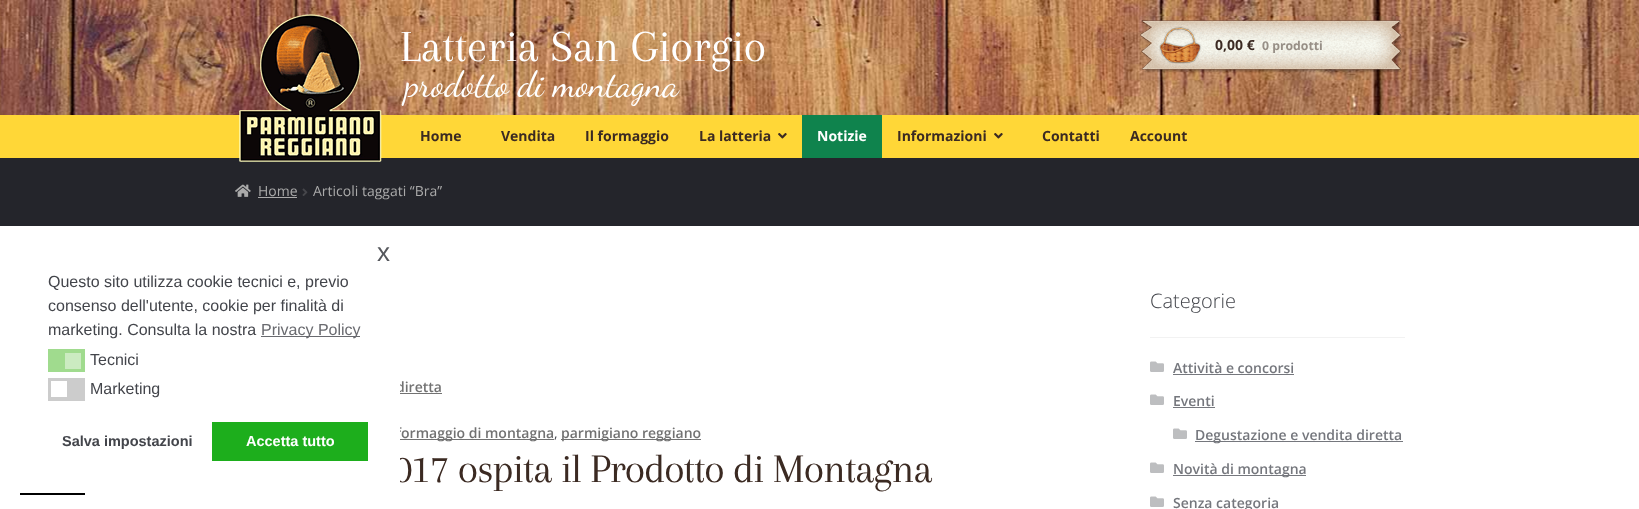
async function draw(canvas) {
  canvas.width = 1639;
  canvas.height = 509;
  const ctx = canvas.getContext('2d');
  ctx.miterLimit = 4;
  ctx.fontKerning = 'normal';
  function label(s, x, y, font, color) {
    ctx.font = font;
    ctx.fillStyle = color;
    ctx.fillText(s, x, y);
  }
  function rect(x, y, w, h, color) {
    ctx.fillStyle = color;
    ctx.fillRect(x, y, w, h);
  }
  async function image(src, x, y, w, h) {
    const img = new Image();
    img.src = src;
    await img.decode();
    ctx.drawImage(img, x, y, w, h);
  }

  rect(0, 0, 1639, 509, '#fff');
  label('diretta', 396, 392, '600 14px Open Sans', '#727272');
  rect(396, 439, 158, 1, '#727272');
  label('formaggio di montagna', 396, 438, '600 14px Open Sans', '#727272');
  ctx.letterSpacing = '-1px';
  label('017 ospita il Prodotto di Montagna', 393, 482, '41.9px Arapey', '#3b2a22');
  ctx.strokeStyle = '#000';
  ctx.lineWidth = 2;
  ctx.strokeRect(21, 446, 63, 48);
  rect(20, 384, 380, 109, '#fff');
  ctx.letterSpacing = '0px';
  label('x', 377, 261, '26px Liberation Sans', '#56585d');
  label('Questo sito utilizza cookie tecnici e, previo', 48, 287, '16px Liberation Sans', '#43454b');
  label('consenso dell\'utente, cookie per finalità di', 48, 311, '16px Liberation Sans', '#43454b');
  label('marketing. Consulta la nostra', 48, 335, '16px Liberation Sans', '#43454b');
  rect(261, 336, 99, 1, '#696a6f');
  label('Privacy Policy', 261, 335, '16px Liberation Sans', '#696a6f');
  rect(48, 349, 37, 23, '#a0db8e');
  rect(65, 353, 16, 16, '#cbebc1');
  label('Tecnici', 90, 365, '16px Liberation Sans', '#43454b');
  rect(48, 378, 37, 23, '#ccc');
  rect(51, 381, 16, 16, '#fff');
  label('Marketing', 90, 394, '16px Liberation Sans', '#43454b');
  label('Salva impostazioni', 62, 446, 'bold 14.5px Liberation Sans', '#43454b');
  rect(212, 422, 156, 39, '#1dae1c');
  label('Accetta tutto', 246, 446, 'bold 14.5px Liberation Sans', '#fff');
  await image('assets/img1.png', 0, 0, 1639, 115);
  rect(0, 115, 1639, 43, '#ffd737');
  rect(0, 158, 1639, 68, '#24252b');
  await image('assets/img2.png', 239, 14, 143, 148);
  label('Latteria San Giorgio', 400, 61, '46px Arapey', '#fff');
  label('prodotto di montagna', 405, 96, '36px Dancing Script', '#fff');
  await image('assets/img3.png', 1140, 20, 262, 53);
  await image('assets/img4.png', 1159, 26, 43, 38);
  label('0,00 €', 1215, 50, 'bold 14px Open Sans', '#3b2a22');
  label('0 prodotti', 1262, 50, 'bold 12.25px Open Sans', '#978f86');
  label('Home', 420, 141, 'bold 14px Open Sans', '#3b2a22');
  label('Vendita', 501, 141, 'bold 14px Open Sans', '#3b2a22');
  label('Il formaggio', 585, 141, 'bold 14px Open Sans', '#3b2a22');
  label('La latteria', 699, 141, 'bold 14px Open Sans', '#3b2a22');
  await image('assets/img5.png', 778, 133, 9, 6);
  rect(802, 115, 80, 43, '#0f834d');
  label('Notizie', 817, 141, 'bold 14px Open Sans', '#fff');
  label('Informazioni', 897, 141, 'bold 14px Open Sans', '#3b2a22');
  await image('assets/img5.png', 994, 133, 9, 6);
  label('Contatti', 1042, 141, 'bold 14px Open Sans', '#3b2a22');
  label('Account', 1130, 141, 'bold 14px Open Sans', '#3b2a22');
  await image('assets/img6.png', 235, 184, 16, 13);
  label('Home', 258, 196, '14px Open Sans', '#aaa');
  rect(258, 197, 39, 1, '#aaa');
  await image('assets/img7.png', 302, 188, 6, 8);
  label('Articoli taggati “Bra”', 313, 196, '14px Open Sans', '#aaa');
  rect(400, 393, 42, 1, '#727272');
  label(',', 554, 438, '14px Open Sans', '#43454b');
  rect(561, 439, 140, 1, '#727272');
  label('parmigiano reggiano', 561, 438, '600 14px Open Sans', '#727272');
  rect(1150, 337, 255, 1, '#f2f2f2');
  label('Categorie', 1150, 308, '300 20px Open Sans', '#43454b');
  await image('assets/img8.png', 1150, 361, 14, 11);
  label('Attività e concorsi', 1173, 373, '600 14px Open Sans', '#75777d');
  rect(1173, 374, 121, 1, '#75777d');
  await image('assets/img8.png', 1150, 394, 14, 11);
  label('Eventi', 1173, 406, '600 14px Open Sans', '#75777d');
  rect(1173, 407, 42, 1, '#75777d');
  await image('assets/img8.png', 1173, 428, 14, 11);
  rect(1195, 441, 208, 1, '#75777d');
  label('Degustazione e vendita diretta', 1195, 440, '600 14px Open Sans', '#75777d');
  await image('assets/img8.png', 1150, 462, 14, 11);
  rect(1173, 475, 133, 1, '#75777d');
  label('Novità di montagna', 1173, 474, '600 14px Open Sans', '#75777d');
  await image('assets/img8.png', 1150, 496, 14, 11);
  label('Senza categoria', 1173, 508, '600 14px Open Sans', '#75777d');
}

draw(document.querySelector('canvas'));
